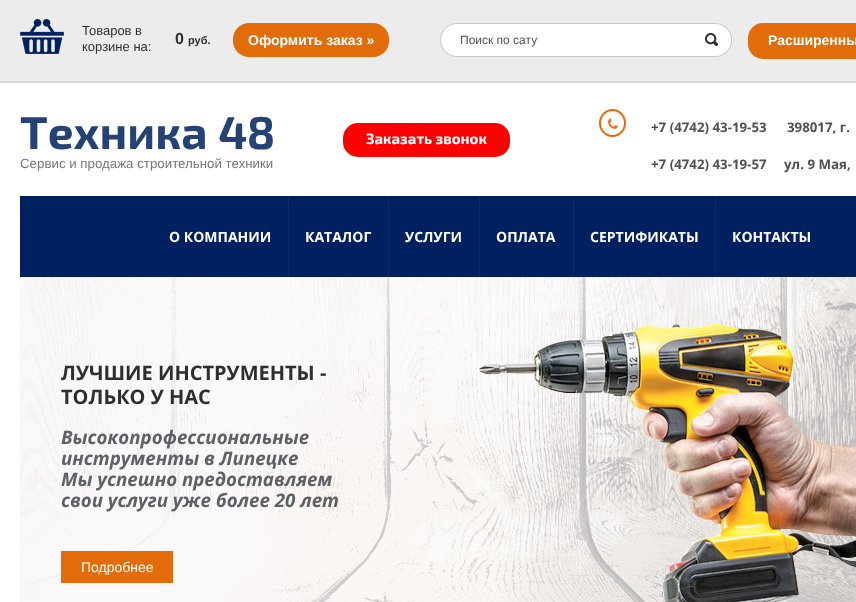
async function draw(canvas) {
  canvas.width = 856;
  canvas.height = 602;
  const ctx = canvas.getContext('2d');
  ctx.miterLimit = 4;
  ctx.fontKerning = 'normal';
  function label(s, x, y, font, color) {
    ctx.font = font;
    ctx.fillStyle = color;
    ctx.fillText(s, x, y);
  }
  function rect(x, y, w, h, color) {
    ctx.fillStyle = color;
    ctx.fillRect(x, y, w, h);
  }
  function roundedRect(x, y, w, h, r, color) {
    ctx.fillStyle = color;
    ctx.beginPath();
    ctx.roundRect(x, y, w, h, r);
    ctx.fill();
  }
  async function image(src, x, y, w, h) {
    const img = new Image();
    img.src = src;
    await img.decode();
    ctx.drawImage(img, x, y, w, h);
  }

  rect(0, 0, 856, 602, '#fff');
  rect(0, 0, 856, 81, '#ececec');
  rect(0, 81, 856, 2, '#dadada');
  await image('assets/img1.png', 20, 19, 44, 35);
  label('Товаров в', 82, 35, '13px Liberation Sans', '#2f2e2c');
  label('корзине на:', 82, 51, '13px Liberation Sans', '#2f2e2c');
  label('0', 175, 44, 'bold 16px Liberation Sans', '#2f2e2c');
  label('руб.', 188, 44, 'bold 11px Liberation Sans', '#2f2e2c');
  roundedRect(233, 23, 156, 34, 16, '#e26b0a');
  label('Оформить заказ »', 248, 45, 'bold 14px Liberation Sans', '#fff');
  await image('assets/img2.png', 440, 23, 292, 34);
  label('Поиск по сату', 460, 44, '12px Liberation Sans', '#515151');
  roundedRect(748, 23, 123, 36, 15, '#e26b0a');
  label('Расширенны', 768, 45, 'bold 14px Liberation Sans', '#fff');
  label('Техника 48', 20, 149, 'bold 46px "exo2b"', '#254274');
  label('Сервис и продажа строительной техники', 20, 168, '13.3px Liberation Sans', '#777');
  roundedRect(343, 123, 167, 34, 15, '#f00');
  label('Заказать звонок', 366, 144, 'bold 15px "exo2b"', '#fff');
  await image('assets/img3.png', 599, 109, 27, 28);
  label('+7 (4742) 43-19-53', 651, 132, 'bold 13.3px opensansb', '#515151');
  label('398017, г.', 787, 132, 'bold 13.3px opensansb', '#515151');
  label('+7 (4742) 43-19-57', 651, 169, 'bold 13.3px opensansb', '#515151');
  label('ул. 9 Мая,', 784, 169, 'bold 13.3px opensansb', '#515151');
  rect(20, 196, 836, 81, '#002060');
  label('О КОМПАНИИ', 169, 242, 'bold 14px opensansb', '#fff');
  rect(288, 196, 1, 81, '#0d2b68');
  label('КАТАЛОГ', 305, 242, 'bold 14px opensansb', '#fff');
  rect(388, 196, 1, 81, '#0d2b68');
  label('УСЛУГИ', 405, 242, 'bold 14px opensansb', '#fff');
  rect(479, 196, 1, 81, '#0d2b68');
  label('ОПЛАТА', 496, 242, 'bold 14px opensansb', '#fff');
  rect(573, 196, 1, 81, '#0d2b68');
  label('СЕРТИФИКАТЫ', 590, 242, 'bold 14px opensansb', '#fff');
  rect(715, 196, 1, 81, '#0d2b68');
  label('КОНТАКТЫ', 732, 242, 'bold 14px opensansb', '#fff');
  await image('assets/img4.png', 20, 277, 836, 325);
  label('ЛУЧШИЕ ИНСТРУМЕНТЫ -', 61, 380, 'bold 20px opensansb', '#2f2e2c');
  label('ТОЛЬКО У НАС', 61, 404, 'bold 20px opensansb', '#2f2e2c');
  label('Высокопрофессиональные', 61, 444, 'italic bold 18.7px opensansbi', '#5d6166');
  label('инструменты в Липецке', 61, 465, 'italic bold 18.7px opensansbi', '#5d6166');
  label('Мы успешно предоставляем', 61, 486, 'italic bold 18.7px opensansbi', '#5d6166');
  label('свои услуги уже более 20 лет', 61, 507, 'italic bold 18.7px opensansbi', '#5d6166');
  rect(61, 551, 112, 32, '#e26b0a');
  label('Подробнее', 81, 572, '14px Liberation Sans', '#fff');
}

draw(document.querySelector('canvas'));
